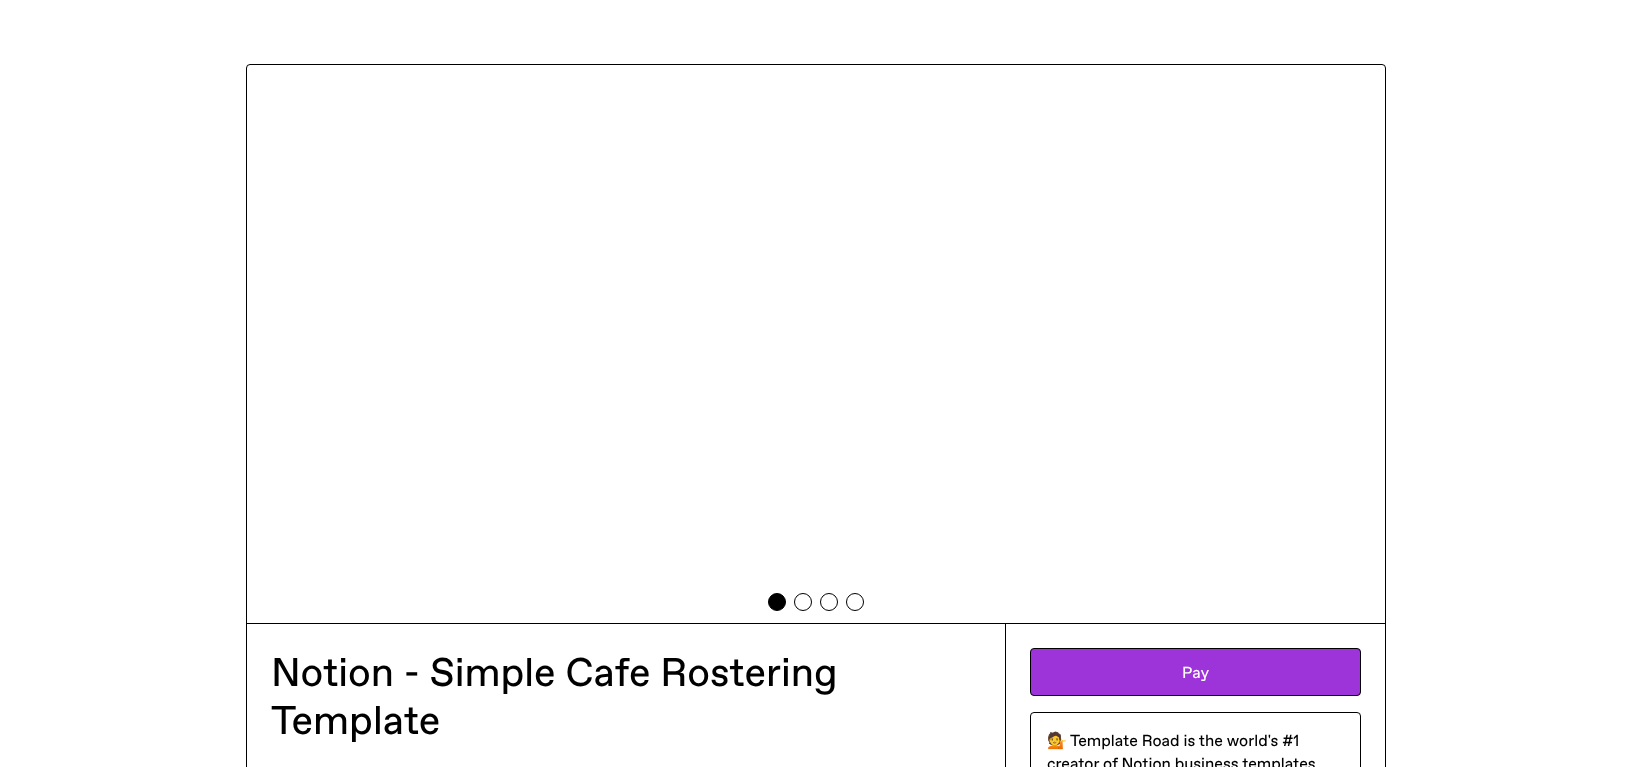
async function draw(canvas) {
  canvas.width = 1632;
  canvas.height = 767;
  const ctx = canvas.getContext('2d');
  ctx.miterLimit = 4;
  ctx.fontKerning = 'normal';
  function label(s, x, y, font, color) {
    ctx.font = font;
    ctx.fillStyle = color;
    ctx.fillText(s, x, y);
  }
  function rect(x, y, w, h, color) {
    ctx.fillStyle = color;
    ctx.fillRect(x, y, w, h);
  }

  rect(0, 0, 1632, 767, '#fff');
  ctx.beginPath();
  ctx.roundRect(246.5, 64.5, 1139, 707, 3.5);
  ctx.strokeStyle = '#000';
  ctx.stroke();
  rect(247, 623, 1138, 1, '#000');
  ctx.beginPath();
  ctx.arc(777, 602, 8.5, 0, 2 * Math.PI);
  ctx.fill();
  ctx.stroke();
  ctx.beginPath();
  ctx.arc(803, 602, 8.5, 0, 2 * Math.PI);
  ctx.stroke();
  ctx.beginPath();
  ctx.arc(829, 602, 8.5, 0, 2 * Math.PI);
  ctx.stroke();
  ctx.beginPath();
  ctx.arc(855, 602, 8.5, 0, 2 * Math.PI);
  ctx.stroke();
  rect(1005, 624, 1, 143, '#000');
  label('Notion - Simple Cafe Rostering', 271, 686, '40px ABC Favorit', '#000');
  label('Template', 271, 734, '40px ABC Favorit', '#000');
  ctx.fillStyle = '#9d34da';
  ctx.beginPath();
  ctx.roundRect(1030.5, 648.5, 330, 47, 3.5);
  ctx.fill();
  ctx.stroke();
  label('Pay', 1182, 678, '16px ABC Favorit', '#fff');
  ctx.beginPath();
  ctx.roundRect(1030.5, 712.5, 330, 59, 3.5);
  ctx.stroke();
  label('💁', 1047, 746, '16px Noto Color Emoji', '#000');
  label('Template Road is the world\'s #1', 1070, 746, '16px ABC Favorit', '#000');
  label('creator of Notion business templates', 1047, 769, '16px ABC Favorit', '#000');
}

draw(document.querySelector('canvas'));
